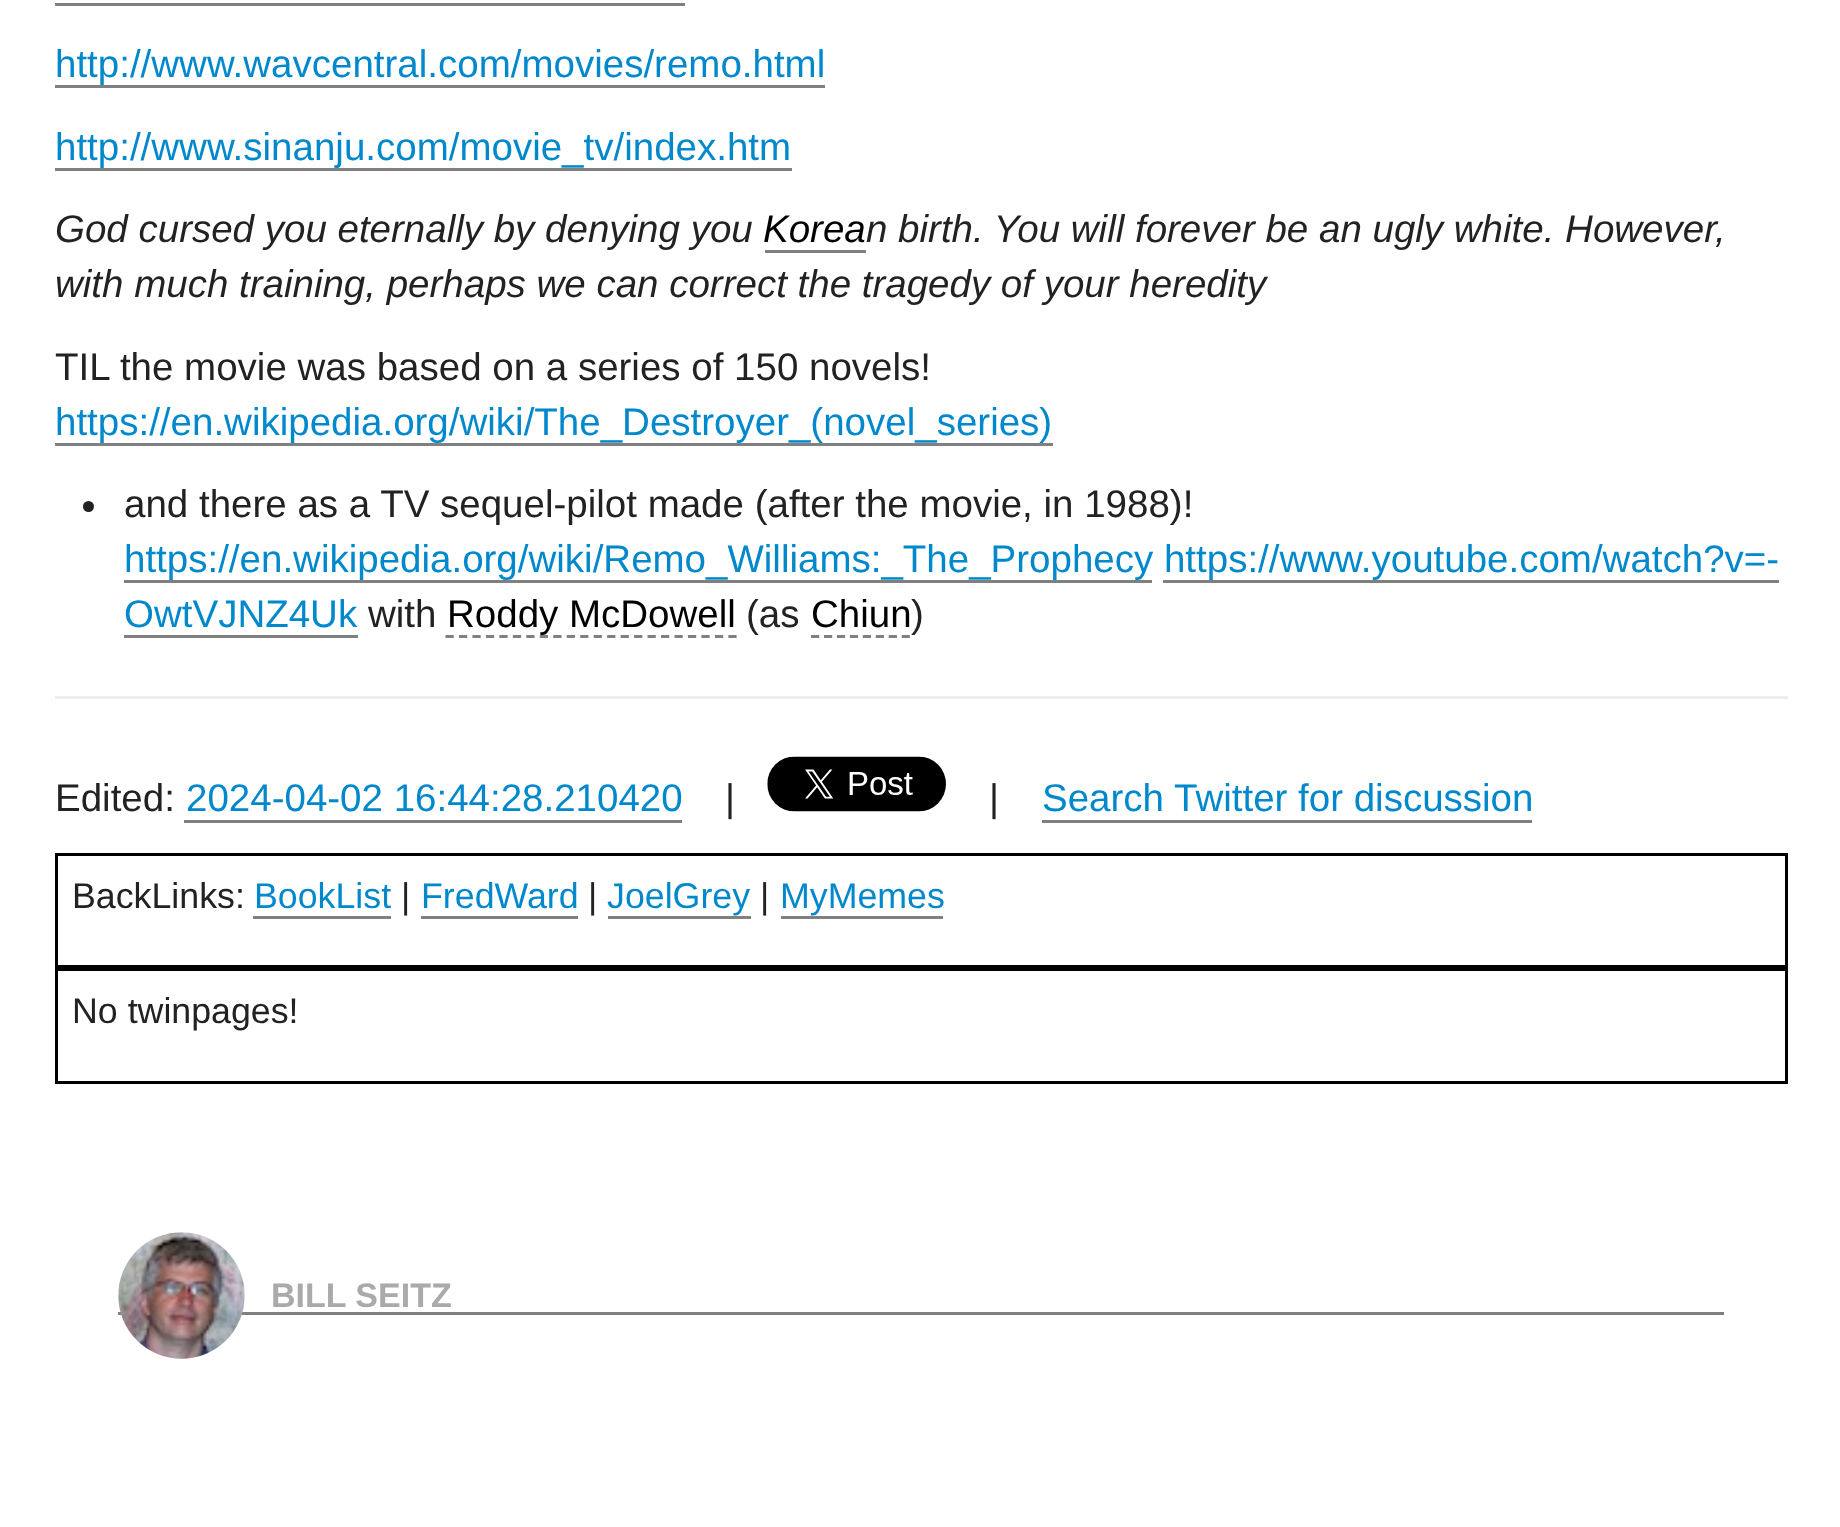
async function draw(canvas) {
  canvas.width = 1840;
  canvas.height = 1527;
  const ctx = canvas.getContext('2d');
  ctx.miterLimit = 4;
  ctx.fontKerning = 'normal';
  function label(s, x, y, font, color) {
    ctx.font = font;
    ctx.fillStyle = color;
    ctx.fillText(s, x, y);
  }
  function rect(x, y, w, h, color) {
    ctx.fillStyle = color;
    ctx.fillRect(x, y, w, h);
  }
  async function image(src, x, y, w, h) {
    const img = new Image();
    img.src = src;
    await img.decode();
    ctx.drawImage(img, x, y, w, h);
  }
  let path;

  rect(0, 0, 1840, 1527, '#fff');
  rect(55, 3, 630, 3, '#808080');
  label('http://www.wavcentral.com/movies/remo.html', 55, 77, '38.5px Liberation Sans', '#08c');
  rect(55, 85, 770, 3, '#808080');
  label('http://www.sinanju.com/movie_tv/index.htm', 55, 160, '38.5px Liberation Sans', '#08c');
  rect(55, 168, 737, 3, '#808080');
  label('God cursed you eternally by denying you', 55, 242, 'italic 38.5px Liberation Sans', '#222');
  label('Korea', 763, 242, 'italic 38.5px Liberation Sans', '#000');
  label('n birth. You will forever be an ugly white. However,', 866, 242, 'italic 38.5px Liberation Sans', '#222');
  rect(765, 250, 101, 3, '#808080');
  label('with much training, perhaps we can correct the tragedy of your heredity', 55, 297, 'italic 38.5px Liberation Sans', '#222');
  label('TIL the movie was based on a series of 150 novels!', 55, 380, '38.5px Liberation Sans', '#222');
  label('https://en.wikipedia.org/wiki/The_Destroyer_(novel_series)', 55, 435, '38.5px Liberation Sans', '#08c');
  rect(55, 443, 998, 3, '#808080');
  ctx.fillStyle = '#222';
  ctx.beginPath();
  ctx.arc(88.5, 506.5, 5.5, 0, 2 * Math.PI);
  ctx.fill();
  label('and there as a TV sequel-pilot made (after the movie, in 1988)!', 124, 517, '38.5px Liberation Sans', '#222');
  label('https://en.wikipedia.org/wiki/Remo_Williams:_The_Prophecy https://www.youtube.com/watch?v=-', 124, 572, '38.5px Liberation Sans', '#08c');
  rect(124, 580, 1028, 3, '#808080');
  label('OwtVJNZ4Uk', 124, 627, '38.5px Liberation Sans', '#08c');
  rect(1163, 580, 616, 3, '#808080');
  rect(124, 635, 234, 3, '#808080');
  label('with', 368, 627, '38.5px Liberation Sans', '#222');
  label('Roddy McDowell', 447, 627, '38.5px Liberation Sans', '#000');
  path = new Path2D('M445.5 636.5H737');
  ctx.strokeStyle = '#808080';
  ctx.lineWidth = 2.8;
  ctx.setLineDash([8.25, 5.22]);
  ctx.stroke(path);
  label('(as', 746, 627, '38.5px Liberation Sans', '#222');
  label('Chiun', 811, 627, '38.5px Liberation Sans', '#000');
  path = new Path2D('M811 636.5H910');
  ctx.setLineDash([8.25, 4.7]);
  ctx.stroke(path);
  label(')', 911, 627, '38.5px Liberation Sans', '#222');
  rect(55, 696, 1733, 3, '#eee');
  label('Edited:', 55, 811, '38.5px Liberation Sans', '#222');
  label('2024-04-02 16:44:28.210420', 186, 811, '38.5px Liberation Sans', '#08c');
  rect(184, 820, 498, 3, '#808080');
  label('|', 725, 811, '38.5px Liberation Sans', '#222');
  await image('assets/img1.png', 767, 756, 179, 56);
  label('|', 989, 811, '38.5px Liberation Sans', '#222');
  label('Search Twitter for discussion', 1042, 811, '38.5px Liberation Sans', '#08c');
  rect(1042, 820, 490, 3, '#808080');
  ctx.strokeStyle = '#000';
  ctx.lineWidth = 3;
  ctx.setLineDash([]);
  ctx.strokeRect(56.5, 854.5, 1730, 112);
  label('BackLinks:', 72, 908, '35.75px Liberation Sans', '#222');
  label('BookList', 254, 908, '35.75px Liberation Sans', '#08c');
  rect(253, 916, 138, 3, '#808080');
  label('|', 401, 908, '35.75px Liberation Sans', '#222');
  label('FredWard', 421, 908, '35.75px Liberation Sans', '#08c');
  rect(421, 916, 157, 3, '#808080');
  label('|', 588, 908, '35.75px Liberation Sans', '#222');
  label('JoelGrey', 607, 908, '35.75px Liberation Sans', '#08c');
  rect(608, 916, 143, 3, '#808080');
  label('|', 760, 908, '35.75px Liberation Sans', '#222');
  label('MyMemes', 780, 908, '35.75px Liberation Sans', '#08c');
  rect(781, 916, 162, 3, '#808080');
  ctx.strokeRect(56.5, 969.5, 1730, 113);
  label('No twinpages!', 72, 1023, '35.75px Liberation Sans', '#222');
  rect(118, 1312, 1606, 3, '#808080');
  await image('assets/img2.png', 118, 1232, 127, 127);
  label('BILL SEITZ', 271, 1307, 'bold 34px Liberation Sans', '#aaa');
}

draw(document.querySelector('canvas'));
